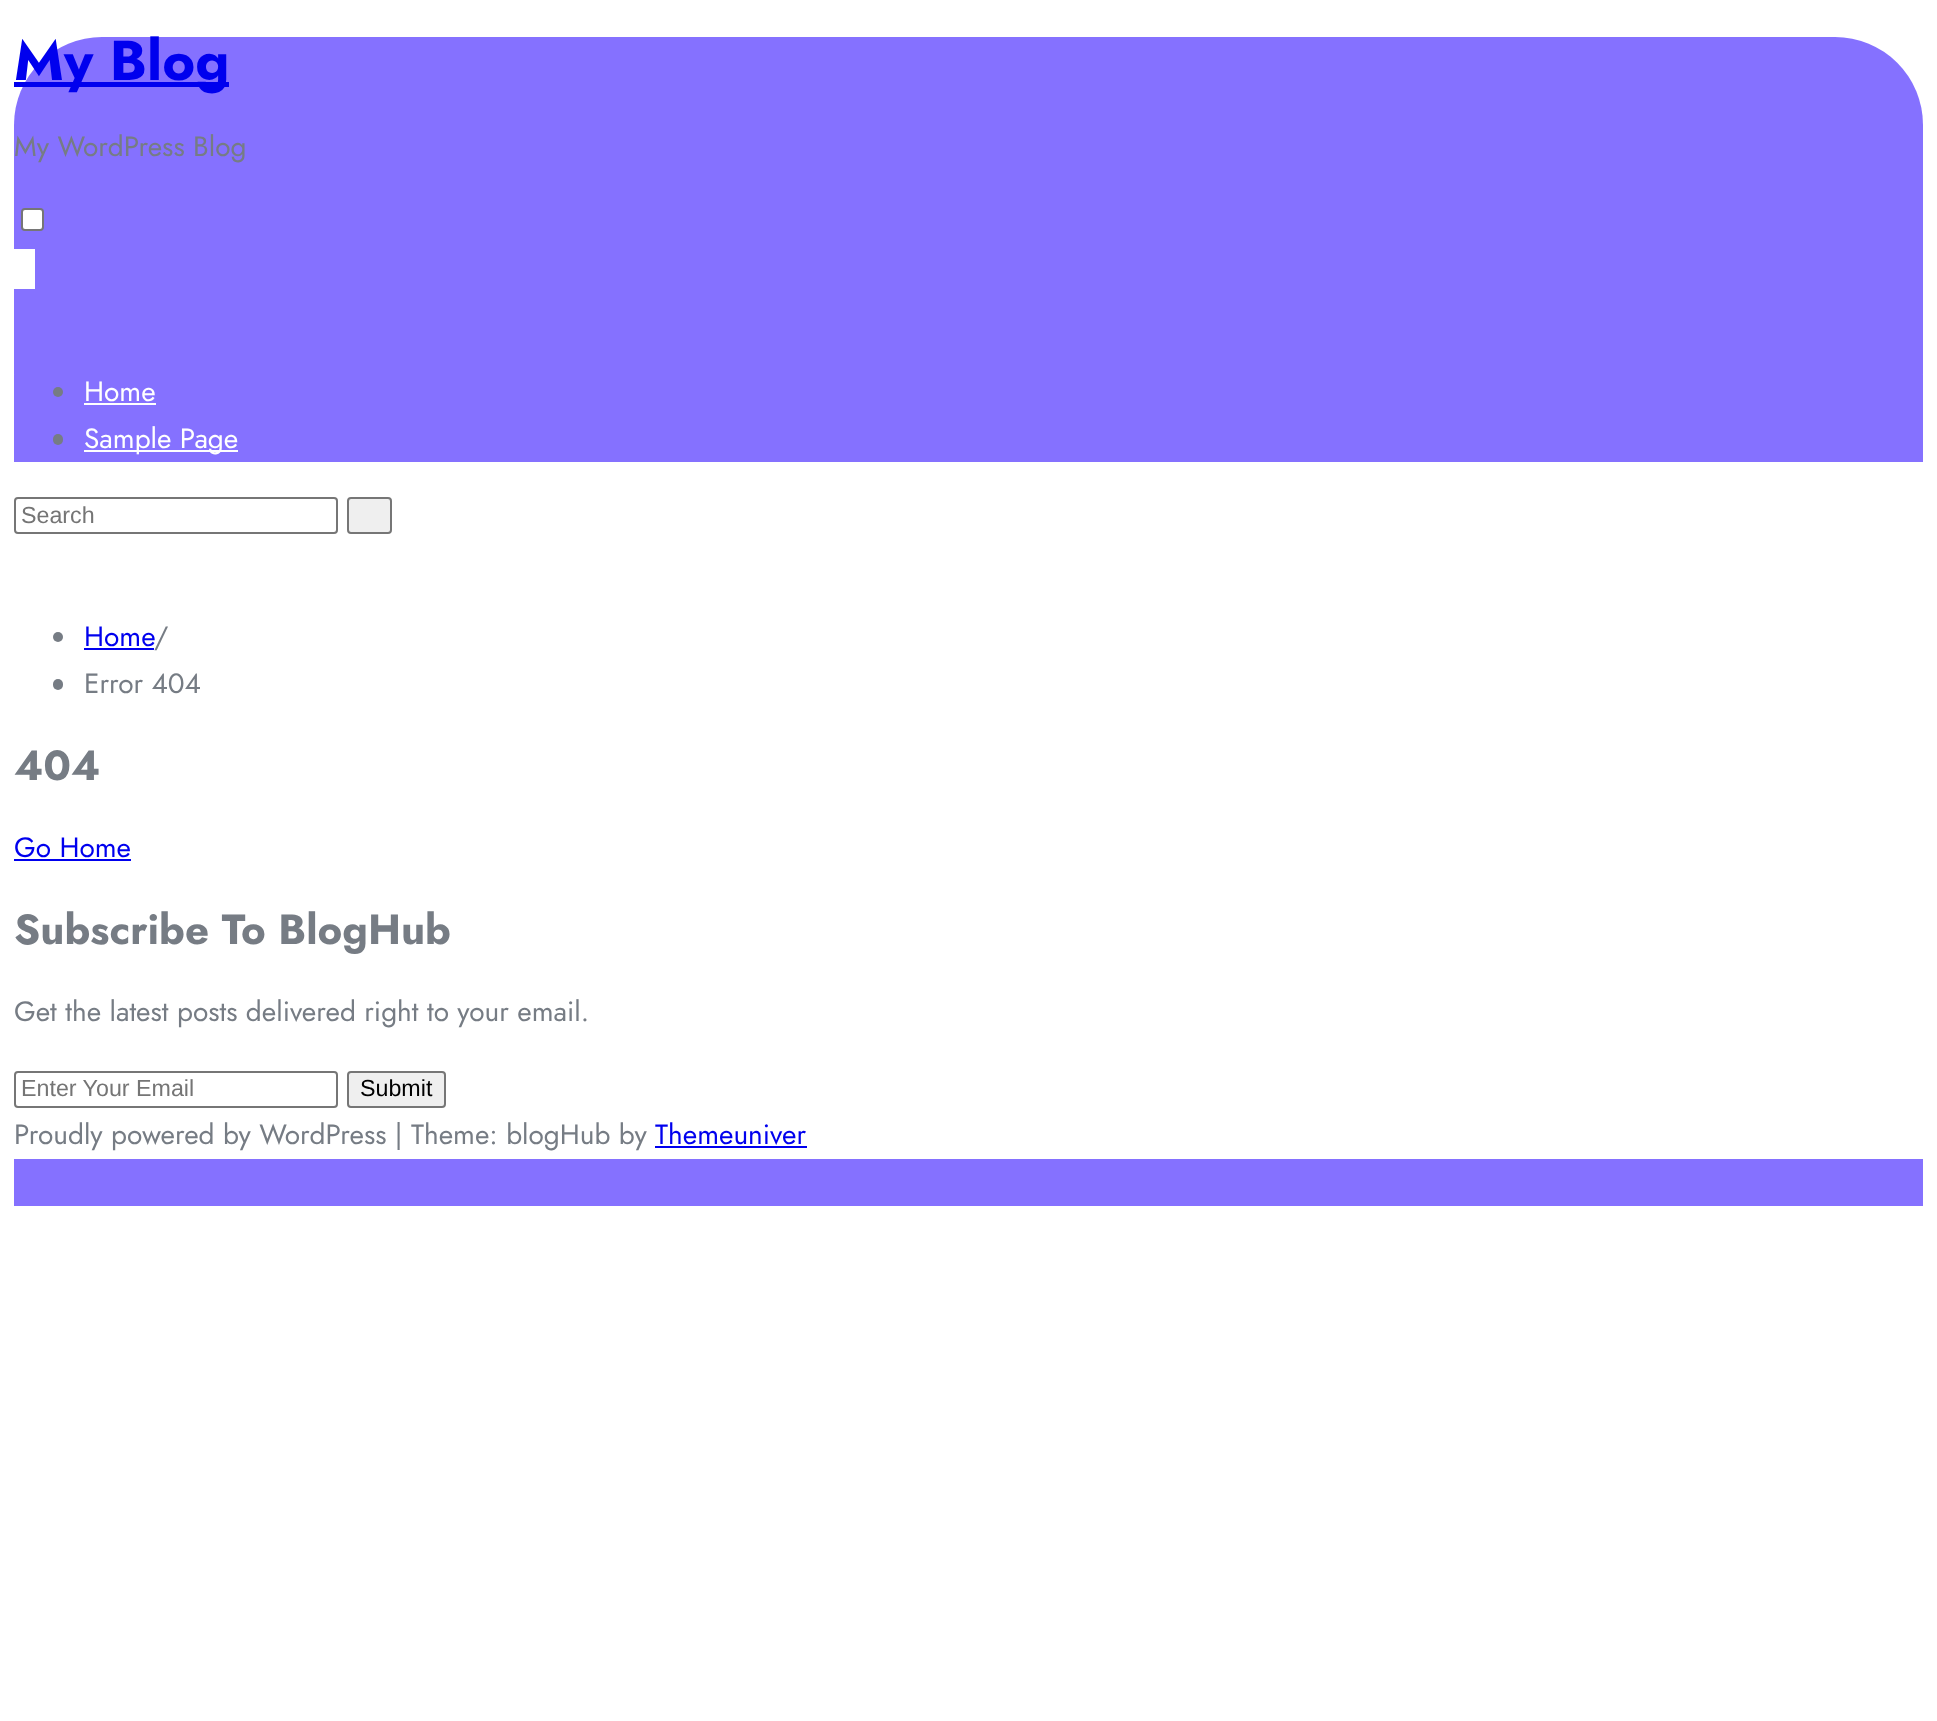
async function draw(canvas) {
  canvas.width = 1937;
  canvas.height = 1721;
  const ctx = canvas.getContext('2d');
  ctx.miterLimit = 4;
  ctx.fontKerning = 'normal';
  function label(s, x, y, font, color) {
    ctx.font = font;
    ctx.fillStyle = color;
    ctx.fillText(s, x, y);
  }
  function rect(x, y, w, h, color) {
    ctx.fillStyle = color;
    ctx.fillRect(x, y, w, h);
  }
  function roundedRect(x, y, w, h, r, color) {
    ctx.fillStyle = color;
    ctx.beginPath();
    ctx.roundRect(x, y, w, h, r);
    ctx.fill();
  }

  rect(0, 0, 1937, 1721, '#fff');
  roundedRect(14, 37, 1909, 425, 88, '#8571ff');
  rect(14, 82, 215, 5, '#00e');
  label('My Blog', 14, 80, 'bold 56px Jost', '#00e');
  label('My WordPress Blog', 14, 156, '28px Jost', '#767c84');
  ctx.fillStyle = '#fff';
  ctx.beginPath();
  ctx.roundRect(22, 209, 21, 21, 3);
  ctx.fill();
  ctx.strokeStyle = '#767676';
  ctx.lineWidth = 2;
  ctx.stroke();
  rect(14, 249, 21, 40, '#fff');
  rect(14, 375, 1909, 87, '#8571ff');
  ctx.fillStyle = '#767c84';
  ctx.beginPath();
  ctx.arc(58, 392, 5, 0, 2 * Math.PI);
  ctx.fill();
  label('Home', 84, 401, '28px Jost', '#fff');
  rect(84, 403, 72, 2, '#fff');
  roundedRect(53, 434, 10, 11, 5, '#767c84');
  rect(84, 450, 154, 2, '#fff');
  label('Sample Page', 84, 448, '28px Jost', '#fff');
  ctx.beginPath();
  ctx.roundRect(15, 498, 322, 35, 3);
  ctx.stroke();
  label('Search', 21, 523, '23.25px Liberation Sans', '#757575');
  ctx.fillStyle = '#efefef';
  ctx.beginPath();
  ctx.roundRect(348, 498, 43, 35, 3);
  ctx.fill();
  ctx.stroke();
  ctx.fillStyle = '#767c84';
  ctx.beginPath();
  ctx.arc(58, 637, 5, 0, 2 * Math.PI);
  ctx.fill();
  label('Home', 84, 646, '28px Jost', '#00e');
  rect(84, 648, 70, 2, '#00e');
  label('/', 154, 646, '28px Jost', '#767c84');
  roundedRect(53, 679, 10, 11, 5, '#767c84');
  label('Error 404', 84, 693, '28px Jost', '#767c84');
  label('404', 14, 780, 'bold 42px Jost', '#767c84');
  label('Go Home', 14, 857, '28px Jost', '#00e');
  rect(14, 859, 117, 2, '#00e');
  label('Subscribe To BlogHub', 14, 944, 'bold 42px Jost', '#767c84');
  label('Get the latest posts delivered right to your email.', 14, 1021, '28px Jost', '#767c84');
  ctx.beginPath();
  ctx.roundRect(15, 1072, 322, 35, 3);
  ctx.stroke();
  label('Enter Your Email', 21, 1096, '23.25px Liberation Sans', '#757575');
  ctx.fillStyle = '#efefef';
  ctx.beginPath();
  ctx.roundRect(348, 1072, 97, 35, 3);
  ctx.fill();
  ctx.stroke();
  label('Submit', 360, 1096, '23.25px Liberation Sans', '#000');
  label('Proudly powered by WordPress | Theme: blogHub by', 14, 1144, '28px Jost', '#767c84');
  label('Themeuniver', 655, 1144, '28px Jost', '#00e');
  rect(655, 1146, 152, 2, '#00e');
  rect(14, 1159, 1909, 47, '#8571ff');
}

draw(document.querySelector('canvas'));
